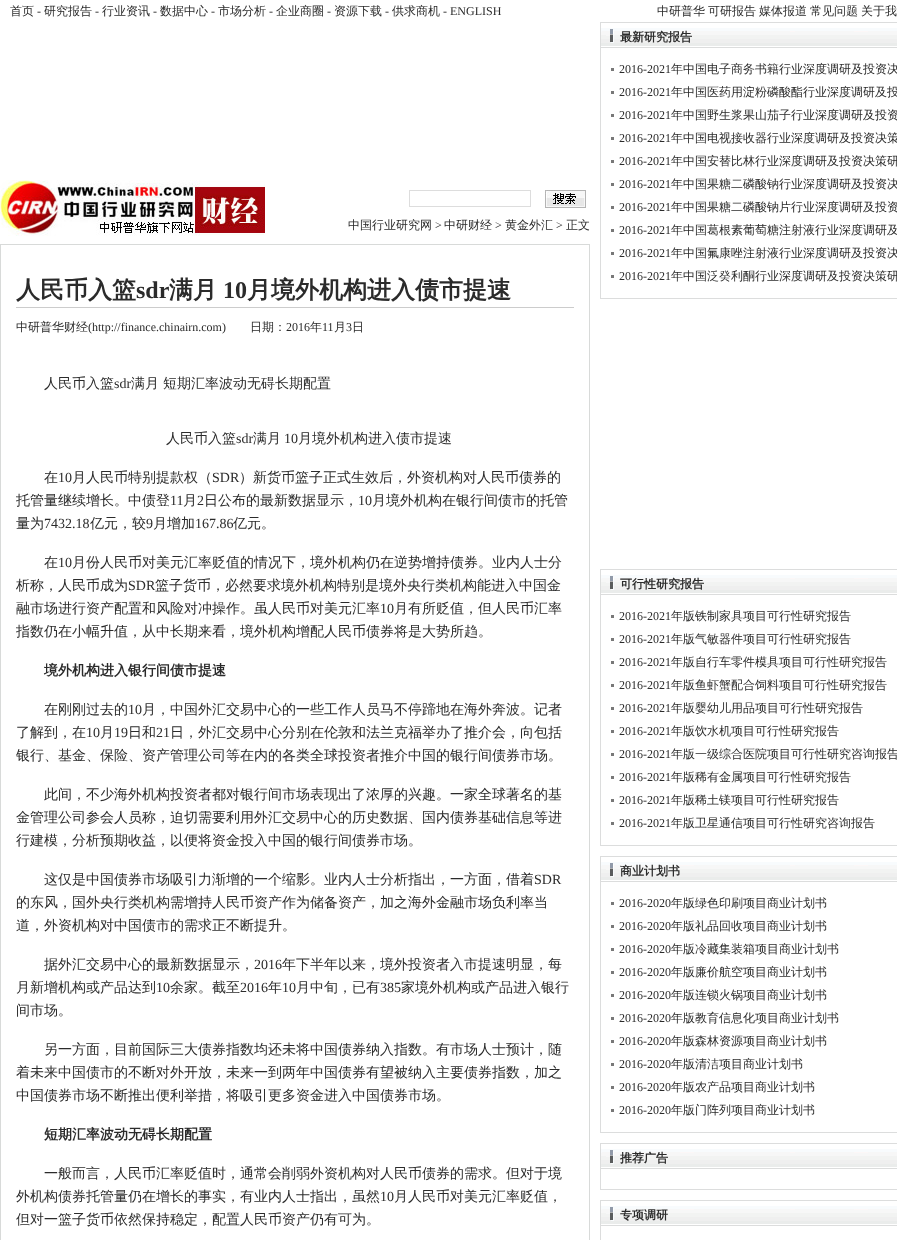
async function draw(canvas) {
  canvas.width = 897;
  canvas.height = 1240;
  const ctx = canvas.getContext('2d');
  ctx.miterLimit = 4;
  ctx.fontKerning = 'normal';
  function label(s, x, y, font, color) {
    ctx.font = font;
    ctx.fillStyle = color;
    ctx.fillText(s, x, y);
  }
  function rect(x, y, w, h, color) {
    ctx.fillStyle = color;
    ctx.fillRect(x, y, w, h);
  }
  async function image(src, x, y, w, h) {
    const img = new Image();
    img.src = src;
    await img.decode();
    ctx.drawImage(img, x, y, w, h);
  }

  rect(0, 0, 897, 1240, '#fff');
  label('首页', 10, 15, '500 12px WenQuanYi Zen Hei', '#2b2b2b');
  label('-', 37, 15, '12px Liberation Serif', '#2b2b2b');
  label('研究报告', 44, 15, '500 12px WenQuanYi Zen Hei', '#2b2b2b');
  label('-', 95, 15, '12px Liberation Serif', '#2b2b2b');
  label('行业资讯', 102, 15, '500 12px WenQuanYi Zen Hei', '#2b2b2b');
  label('-', 153, 15, '12px Liberation Serif', '#2b2b2b');
  label('数据中心', 160, 15, '500 12px WenQuanYi Zen Hei', '#2b2b2b');
  label('-', 211, 15, '12px Liberation Serif', '#2b2b2b');
  label('市场分析', 218, 15, '500 12px WenQuanYi Zen Hei', '#2b2b2b');
  label('-', 269, 15, '12px Liberation Serif', '#2b2b2b');
  label('企业商圈', 276, 15, '500 12px WenQuanYi Zen Hei', '#2b2b2b');
  label('-', 327, 15, '12px Liberation Serif', '#2b2b2b');
  label('资源下载', 334, 15, '500 12px WenQuanYi Zen Hei', '#2b2b2b');
  label('-', 385, 15, '12px Liberation Serif', '#2b2b2b');
  label('供求商机', 392, 15, '500 12px WenQuanYi Zen Hei', '#2b2b2b');
  label('- ENGLISH', 443, 15, '12px Liberation Serif', '#2b2b2b');
  label('中研普华', 657, 15, '500 12px WenQuanYi Zen Hei', '#2b2b2b');
  label('可研报告', 708, 15, '500 12px WenQuanYi Zen Hei', '#2b2b2b');
  label('媒体报道', 759, 15, '500 12px WenQuanYi Zen Hei', '#2b2b2b');
  label('常见问题', 810, 15, '500 12px WenQuanYi Zen Hei', '#2b2b2b');
  label('关于我', 861, 15, '500 12px WenQuanYi Zen Hei', '#2b2b2b');
  await image('assets/img1.png', 0, 180, 265, 56);
  ctx.strokeStyle = '#ddd';
  ctx.strokeRect(409.5, 190.5, 121, 16);
  await image('assets/img2.png', 545, 190, 41, 18);
  label('中国行业研究网', 348, 229, '500 12px WenQuanYi Zen Hei', '#2b2b2b');
  label('>', 435, 229, '12px Liberation Serif', '#2b2b2b');
  label('中研财经', 444, 229, '500 12px WenQuanYi Zen Hei', '#2b2b2b');
  label('>', 495, 229, '12px Liberation Serif', '#2b2b2b');
  label('黄金外汇', 505, 229, '500 12px WenQuanYi Zen Hei', '#2b2b2b');
  label('>', 556, 229, '12px Liberation Serif', '#2b2b2b');
  label('正文', 566, 229, '500 12px WenQuanYi Zen Hei', '#2b2b2b');
  ctx.strokeStyle = '#d8dad9';
  ctx.strokeRect(0.5, 244.5, 589, 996);
  rect(16, 307, 558, 1, '#ccc');
  label('人民币入篮', 16, 298, 'bold 24px WenQuanYi Zen Hei', '#2b2b2b');
  label('sdr', 136, 298, 'bold 24px Liberation Serif', '#2b2b2b');
  label('满月', 169, 298, 'bold 24px WenQuanYi Zen Hei', '#2b2b2b');
  label('10', 223, 298, 'bold 24px Liberation Serif', '#2b2b2b');
  label('月境外机构进入债市提速', 247, 298, 'bold 24px WenQuanYi Zen Hei', '#2b2b2b');
  label('中研普华财经', 16, 331, '500 12px WenQuanYi Zen Hei', '#2b2b2b');
  label('(http://finance.chinairn.com)', 88, 331, '12px Liberation Serif', '#2b2b2b');
  label('日期：', 250, 331, '500 12px WenQuanYi Zen Hei', '#2b2b2b');
  label('2016', 286, 331, '12px Liberation Serif', '#2b2b2b');
  label('年', 310, 331, '500 12px WenQuanYi Zen Hei', '#2b2b2b');
  label('11', 322, 331, '12px Liberation Serif', '#2b2b2b');
  label('月', 334, 331, '500 12px WenQuanYi Zen Hei', '#2b2b2b');
  label('3', 346, 331, '12px Liberation Serif', '#2b2b2b');
  label('日', 352, 331, '500 12px WenQuanYi Zen Hei', '#2b2b2b');
  label('人民币入篮', 44, 388, '500 14px WenQuanYi Zen Hei', '#2b2b2b');
  label('sdr', 114, 388, '14px Liberation Serif', '#2b2b2b');
  label('满月', 131, 388, '500 14px WenQuanYi Zen Hei', '#2b2b2b');
  label('短期汇率波动无碍长期配置', 163, 388, '500 14px WenQuanYi Zen Hei', '#2b2b2b');
  label('人民币入篮', 166, 443, '500 14px WenQuanYi Zen Hei', '#2b2b2b');
  label('sdr', 236, 443, '14px Liberation Serif', '#2b2b2b');
  label('满月', 253, 443, '500 14px WenQuanYi Zen Hei', '#2b2b2b');
  label('10', 284, 443, '14px Liberation Serif', '#2b2b2b');
  label('月境外机构进入债市提速', 298, 443, '500 14px WenQuanYi Zen Hei', '#2b2b2b');
  label('在', 44, 482, '500 14px WenQuanYi Zen Hei', '#2b2b2b');
  label('10', 58, 482, '14px Liberation Serif', '#2b2b2b');
  label('月人民币特别提款权（', 72, 482, '500 14px WenQuanYi Zen Hei', '#2b2b2b');
  label('SDR', 212, 482, '14px Liberation Serif', '#2b2b2b');
  label('）新货币篮子正式生效后，外资机构对人民币债券的', 239, 482, '500 14px WenQuanYi Zen Hei', '#2b2b2b');
  label('托管量继续增长。中债登', 16, 505, '500 14px WenQuanYi Zen Hei', '#2b2b2b');
  label('11', 170, 505, '14px Liberation Serif', '#2b2b2b');
  label('月', 183, 505, '500 14px WenQuanYi Zen Hei', '#2b2b2b');
  label('2', 197, 505, '14px Liberation Serif', '#2b2b2b');
  label('日公布的最新数据显示，', 204, 505, '500 14px WenQuanYi Zen Hei', '#2b2b2b');
  label('10', 358, 505, '14px Liberation Serif', '#2b2b2b');
  label('月境外机构在银行间债市的托管', 372, 505, '500 14px WenQuanYi Zen Hei', '#2b2b2b');
  label('量为', 16, 528, '500 14px WenQuanYi Zen Hei', '#2b2b2b');
  label('7432.18', 44, 528, '14px Liberation Serif', '#2b2b2b');
  label('亿元，较', 90, 528, '500 14px WenQuanYi Zen Hei', '#2b2b2b');
  label('9', 146, 528, '14px Liberation Serif', '#2b2b2b');
  label('月增加', 153, 528, '500 14px WenQuanYi Zen Hei', '#2b2b2b');
  label('167.86', 195, 528, '14px Liberation Serif', '#2b2b2b');
  label('亿元。', 233, 528, '500 14px WenQuanYi Zen Hei', '#2b2b2b');
  label('在', 44, 567, '500 14px WenQuanYi Zen Hei', '#2b2b2b');
  label('10', 58, 567, '14px Liberation Serif', '#2b2b2b');
  label('月份人民币对美元汇率贬值的情况下，境外机构仍在逆势增持债券。业内人士分', 72, 567, '500 14px WenQuanYi Zen Hei', '#2b2b2b');
  label('析称，人民币成为', 16, 590, '500 14px WenQuanYi Zen Hei', '#2b2b2b');
  label('SDR', 128, 590, '14px Liberation Serif', '#2b2b2b');
  label('篮子货币，必然要求境外机构特别是境外央行类机构能进入中国金', 155, 590, '500 14px WenQuanYi Zen Hei', '#2b2b2b');
  label('融市场进行资产配置和风险对冲操作。虽人民币对美元汇率', 16, 613, '500 14px WenQuanYi Zen Hei', '#2b2b2b');
  label('10', 380, 613, '14px Liberation Serif', '#2b2b2b');
  label('月有所贬值，但人民币汇率', 394, 613, '500 14px WenQuanYi Zen Hei', '#2b2b2b');
  label('指数仍在小幅升值，从中长期来看，境外机构增配人民币债券将是大势所趋。', 16, 636, '500 14px WenQuanYi Zen Hei', '#2b2b2b');
  label('境外机构进入银行间债市提速', 44, 675, 'bold 14px WenQuanYi Zen Hei', '#2b2b2b');
  label('在刚刚过去的', 44, 714, '500 14px WenQuanYi Zen Hei', '#2b2b2b');
  label('10', 128, 714, '14px Liberation Serif', '#2b2b2b');
  label('月，中国外汇交易中心的一些工作人员马不停蹄地在海外奔波。记者', 142, 714, '500 14px WenQuanYi Zen Hei', '#2b2b2b');
  label('了解到，在', 16, 737, '500 14px WenQuanYi Zen Hei', '#2b2b2b');
  label('10', 86, 737, '14px Liberation Serif', '#2b2b2b');
  label('月', 100, 737, '500 14px WenQuanYi Zen Hei', '#2b2b2b');
  label('19', 114, 737, '14px Liberation Serif', '#2b2b2b');
  label('日和', 128, 737, '500 14px WenQuanYi Zen Hei', '#2b2b2b');
  label('21', 156, 737, '14px Liberation Serif', '#2b2b2b');
  label('日，外汇交易中心分别在伦敦和法兰克福举办了推介会，向包括', 170, 737, '500 14px WenQuanYi Zen Hei', '#2b2b2b');
  label('银行、基金、保险、资产管理公司等在内的各类全球投资者推介中国的银行间债券市场。', 16, 760, '500 14px WenQuanYi Zen Hei', '#2b2b2b');
  label('此间，不少海外机构投资者都对银行间市场表现出了浓厚的兴趣。一家全球著名的基', 44, 799, '500 14px WenQuanYi Zen Hei', '#2b2b2b');
  label('金管理公司参会人员称，迫切需要利用外汇交易中心的历史数据、国内债券基础信息等进', 16, 822, '500 14px WenQuanYi Zen Hei', '#2b2b2b');
  label('行建模，分析预期收益，以便将资金投入中国的银行间债券市场。', 16, 845, '500 14px WenQuanYi Zen Hei', '#2b2b2b');
  label('这仅是中国债券市场吸引力渐增的一个缩影。业内人士分析指出，一方面，借着', 44, 884, '500 14px WenQuanYi Zen Hei', '#2b2b2b');
  label('SDR', 534, 884, '14px Liberation Serif', '#2b2b2b');
  label('的东风，国外央行类机构需增持人民币资产作为储备资产，加之海外金融市场负利率当', 16, 907, '500 14px WenQuanYi Zen Hei', '#2b2b2b');
  label('道，外资机构对中国债市的需求正不断提升。', 16, 930, '500 14px WenQuanYi Zen Hei', '#2b2b2b');
  label('据外汇交易中心的最新数据显示，', 44, 969, '500 14px WenQuanYi Zen Hei', '#2b2b2b');
  label('2016', 254, 969, '14px Liberation Serif', '#2b2b2b');
  label('年下半年以来，境外投资者入市提速明显，每', 282, 969, '500 14px WenQuanYi Zen Hei', '#2b2b2b');
  label('月新增机构或产品达到', 16, 992, '500 14px WenQuanYi Zen Hei', '#2b2b2b');
  label('10', 156, 992, '14px Liberation Serif', '#2b2b2b');
  label('余家。截至', 170, 992, '500 14px WenQuanYi Zen Hei', '#2b2b2b');
  label('2016', 240, 992, '14px Liberation Serif', '#2b2b2b');
  label('年', 268, 992, '500 14px WenQuanYi Zen Hei', '#2b2b2b');
  label('10', 282, 992, '14px Liberation Serif', '#2b2b2b');
  label('月中旬，已有', 296, 992, '500 14px WenQuanYi Zen Hei', '#2b2b2b');
  label('385', 380, 992, '14px Liberation Serif', '#2b2b2b');
  label('家境外机构或产品进入银行', 401, 992, '500 14px WenQuanYi Zen Hei', '#2b2b2b');
  label('间市场。', 16, 1015, '500 14px WenQuanYi Zen Hei', '#2b2b2b');
  label('另一方面，目前国际三大债券指数均还未将中国债券纳入指数。有市场人士预计，随', 44, 1054, '500 14px WenQuanYi Zen Hei', '#2b2b2b');
  label('着未来中国债市的不断对外开放，未来一到两年中国债券有望被纳入主要债券指数，加之', 16, 1077, '500 14px WenQuanYi Zen Hei', '#2b2b2b');
  label('中国债券市场不断推出便利举措，将吸引更多资金进入中国债券市场。', 16, 1100, '500 14px WenQuanYi Zen Hei', '#2b2b2b');
  label('短期汇率波动无碍长期配置', 44, 1139, 'bold 14px WenQuanYi Zen Hei', '#2b2b2b');
  label('一般而言，人民币汇率贬值时，通常会削弱外资机构对人民币债券的需求。但对于境', 44, 1178, '500 14px WenQuanYi Zen Hei', '#2b2b2b');
  label('外机构债券托管量仍在增长的事实，有业内人士指出，虽然', 16, 1201, '500 14px WenQuanYi Zen Hei', '#2b2b2b');
  label('10', 380, 1201, '14px Liberation Serif', '#2b2b2b');
  label('月人民币对美元汇率贬值，', 394, 1201, '500 14px WenQuanYi Zen Hei', '#2b2b2b');
  label('但对一篮子货币依然保持稳定，配置人民币资产仍有可为。', 16, 1224, '500 14px WenQuanYi Zen Hei', '#2b2b2b');
  ctx.strokeStyle = '#dcdddd';
  ctx.strokeRect(600.5, 22.5, 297, 276);
  await image('assets/img3.png', 601, 28, 296, 20);
  await image('assets/img4.png', 601, 29, 19, 14);
  label('最新研究报告', 620, 41, 'bold 12px WenQuanYi Zen Hei', '#2b2b2b');
  rect(611, 68, 3, 3, '#787878');
  label('2016-2021', 619, 73, '12px Liberation Serif', '#2b2b2b');
  label('年中国电子商务书籍行业深度调研及投资决', 671, 73, '500 12px WenQuanYi Zen Hei', '#2b2b2b');
  rect(611, 91, 3, 3, '#787878');
  label('2016-2021', 619, 96, '12px Liberation Serif', '#2b2b2b');
  label('年中国医药用淀粉磷酸酯行业深度调研及投', 671, 96, '500 12px WenQuanYi Zen Hei', '#2b2b2b');
  rect(611, 114, 3, 3, '#787878');
  label('2016-2021', 619, 119, '12px Liberation Serif', '#2b2b2b');
  label('年中国野生浆果山茄子行业深度调研及投资', 671, 119, '500 12px WenQuanYi Zen Hei', '#2b2b2b');
  rect(611, 137, 3, 3, '#787878');
  label('2016-2021', 619, 142, '12px Liberation Serif', '#2b2b2b');
  label('年中国电视接收器行业深度调研及投资决策', 671, 142, '500 12px WenQuanYi Zen Hei', '#2b2b2b');
  rect(611, 160, 3, 3, '#787878');
  label('2016-2021', 619, 165, '12px Liberation Serif', '#2b2b2b');
  label('年中国安替比林行业深度调研及投资决策研', 671, 165, '500 12px WenQuanYi Zen Hei', '#2b2b2b');
  rect(611, 183, 3, 3, '#787878');
  label('2016-2021', 619, 188, '12px Liberation Serif', '#2b2b2b');
  label('年中国果糖二磷酸钠行业深度调研及投资决', 671, 188, '500 12px WenQuanYi Zen Hei', '#2b2b2b');
  rect(611, 206, 3, 3, '#787878');
  label('2016-2021', 619, 211, '12px Liberation Serif', '#2b2b2b');
  label('年中国果糖二磷酸钠片行业深度调研及投资', 671, 211, '500 12px WenQuanYi Zen Hei', '#2b2b2b');
  rect(611, 229, 3, 3, '#787878');
  label('2016-2021', 619, 234, '12px Liberation Serif', '#2b2b2b');
  label('年中国葛根素葡萄糖注射液行业深度调研及', 671, 234, '500 12px WenQuanYi Zen Hei', '#2b2b2b');
  rect(611, 252, 3, 3, '#787878');
  label('2016-2021', 619, 257, '12px Liberation Serif', '#2b2b2b');
  label('年中国氟康唑注射液行业深度调研及投资决', 671, 257, '500 12px WenQuanYi Zen Hei', '#2b2b2b');
  rect(611, 275, 3, 3, '#787878');
  label('2016-2021', 619, 280, '12px Liberation Serif', '#2b2b2b');
  label('年中国泛癸利酮行业深度调研及投资决策研', 671, 280, '500 12px WenQuanYi Zen Hei', '#2b2b2b');
  ctx.strokeRect(600.5, 569.5, 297, 276);
  await image('assets/img3.png', 601, 575, 296, 20);
  await image('assets/img4.png', 601, 576, 19, 14);
  label('可行性研究报告', 620, 588, 'bold 12px WenQuanYi Zen Hei', '#2b2b2b');
  rect(611, 615, 3, 3, '#787878');
  label('2016-2021', 619, 620, '12px Liberation Serif', '#2b2b2b');
  label('年版铁制家具项目可行性研究报告', 671, 620, '500 12px WenQuanYi Zen Hei', '#2b2b2b');
  rect(611, 638, 3, 3, '#787878');
  label('2016-2021', 619, 643, '12px Liberation Serif', '#2b2b2b');
  label('年版气敏器件项目可行性研究报告', 671, 643, '500 12px WenQuanYi Zen Hei', '#2b2b2b');
  rect(611, 661, 3, 3, '#787878');
  label('2016-2021', 619, 666, '12px Liberation Serif', '#2b2b2b');
  label('年版自行车零件模具项目可行性研究报告', 671, 666, '500 12px WenQuanYi Zen Hei', '#2b2b2b');
  rect(611, 684, 3, 3, '#787878');
  label('2016-2021', 619, 689, '12px Liberation Serif', '#2b2b2b');
  label('年版鱼虾蟹配合饲料项目可行性研究报告', 671, 689, '500 12px WenQuanYi Zen Hei', '#2b2b2b');
  rect(611, 707, 3, 3, '#787878');
  label('2016-2021', 619, 712, '12px Liberation Serif', '#2b2b2b');
  label('年版婴幼儿用品项目可行性研究报告', 671, 712, '500 12px WenQuanYi Zen Hei', '#2b2b2b');
  rect(611, 730, 3, 3, '#787878');
  label('2016-2021', 619, 735, '12px Liberation Serif', '#2b2b2b');
  label('年版饮水机项目可行性研究报告', 671, 735, '500 12px WenQuanYi Zen Hei', '#2b2b2b');
  rect(611, 753, 3, 3, '#787878');
  label('2016-2021', 619, 758, '12px Liberation Serif', '#2b2b2b');
  label('年版一级综合医院项目可行性研究咨询报告', 671, 758, '500 12px WenQuanYi Zen Hei', '#2b2b2b');
  rect(611, 776, 3, 3, '#787878');
  label('2016-2021', 619, 781, '12px Liberation Serif', '#2b2b2b');
  label('年版稀有金属项目可行性研究报告', 671, 781, '500 12px WenQuanYi Zen Hei', '#2b2b2b');
  rect(611, 799, 3, 3, '#787878');
  label('2016-2021', 619, 804, '12px Liberation Serif', '#2b2b2b');
  label('年版稀土镁项目可行性研究报告', 671, 804, '500 12px WenQuanYi Zen Hei', '#2b2b2b');
  rect(611, 822, 3, 3, '#787878');
  label('2016-2021', 619, 827, '12px Liberation Serif', '#2b2b2b');
  label('年版卫星通信项目可行性研究咨询报告', 671, 827, '500 12px WenQuanYi Zen Hei', '#2b2b2b');
  ctx.strokeRect(600.5, 856.5, 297, 276);
  await image('assets/img3.png', 601, 862, 296, 20);
  await image('assets/img4.png', 601, 863, 19, 14);
  label('商业计划书', 620, 875, 'bold 12px WenQuanYi Zen Hei', '#2b2b2b');
  rect(611, 902, 3, 3, '#787878');
  label('2016-2020', 619, 907, '12px Liberation Serif', '#2b2b2b');
  label('年版绿色印刷项目商业计划书', 671, 907, '500 12px WenQuanYi Zen Hei', '#2b2b2b');
  rect(611, 925, 3, 3, '#787878');
  label('2016-2020', 619, 930, '12px Liberation Serif', '#2b2b2b');
  label('年版礼品回收项目商业计划书', 671, 930, '500 12px WenQuanYi Zen Hei', '#2b2b2b');
  rect(611, 948, 3, 3, '#787878');
  label('2016-2020', 619, 953, '12px Liberation Serif', '#2b2b2b');
  label('年版冷藏集装箱项目商业计划书', 671, 953, '500 12px WenQuanYi Zen Hei', '#2b2b2b');
  rect(611, 971, 3, 3, '#787878');
  label('2016-2020', 619, 976, '12px Liberation Serif', '#2b2b2b');
  label('年版廉价航空项目商业计划书', 671, 976, '500 12px WenQuanYi Zen Hei', '#2b2b2b');
  rect(611, 994, 3, 3, '#787878');
  label('2016-2020', 619, 999, '12px Liberation Serif', '#2b2b2b');
  label('年版连锁火锅项目商业计划书', 671, 999, '500 12px WenQuanYi Zen Hei', '#2b2b2b');
  rect(611, 1017, 3, 3, '#787878');
  label('2016-2020', 619, 1022, '12px Liberation Serif', '#2b2b2b');
  label('年版教育信息化项目商业计划书', 671, 1022, '500 12px WenQuanYi Zen Hei', '#2b2b2b');
  rect(611, 1040, 3, 3, '#787878');
  label('2016-2020', 619, 1045, '12px Liberation Serif', '#2b2b2b');
  label('年版森林资源项目商业计划书', 671, 1045, '500 12px WenQuanYi Zen Hei', '#2b2b2b');
  rect(611, 1063, 3, 3, '#787878');
  label('2016-2020', 619, 1068, '12px Liberation Serif', '#2b2b2b');
  label('年版清洁项目商业计划书', 671, 1068, '500 12px WenQuanYi Zen Hei', '#2b2b2b');
  rect(611, 1086, 3, 3, '#787878');
  label('2016-2020', 619, 1091, '12px Liberation Serif', '#2b2b2b');
  label('年版农产品项目商业计划书', 671, 1091, '500 12px WenQuanYi Zen Hei', '#2b2b2b');
  rect(611, 1109, 3, 3, '#787878');
  label('2016-2020', 619, 1114, '12px Liberation Serif', '#2b2b2b');
  label('年版门阵列项目商业计划书', 671, 1114, '500 12px WenQuanYi Zen Hei', '#2b2b2b');
  ctx.strokeRect(600.5, 1143.5, 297, 46);
  await image('assets/img3.png', 601, 1149, 296, 20);
  await image('assets/img4.png', 601, 1150, 19, 14);
  label('推荐广告', 620, 1162, 'bold 12px WenQuanYi Zen Hei', '#2b2b2b');
  ctx.strokeRect(600.5, 1200.5, 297, 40);
  await image('assets/img3.png', 601, 1206, 296, 20);
  await image('assets/img4.png', 601, 1207, 19, 14);
  label('专项调研', 620, 1219, 'bold 12px WenQuanYi Zen Hei', '#2b2b2b');
}

draw(document.querySelector('canvas'));
